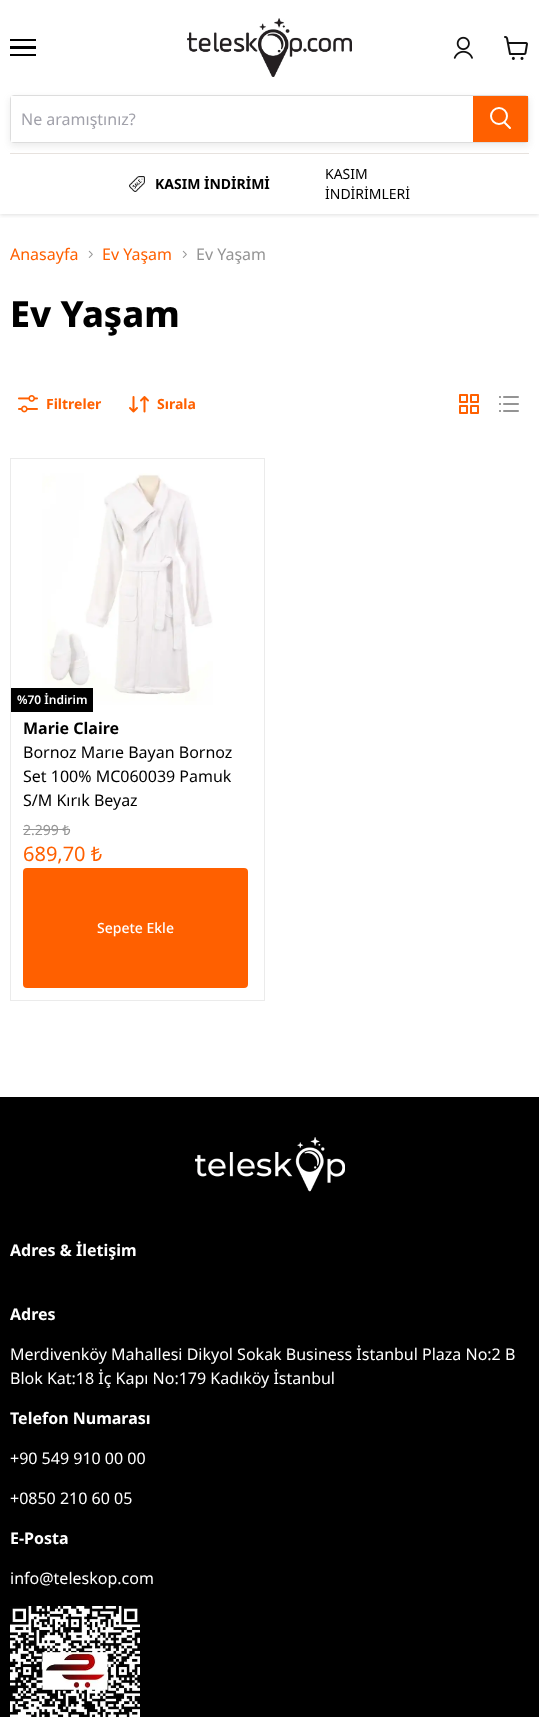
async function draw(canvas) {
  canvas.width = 539;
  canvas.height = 1717;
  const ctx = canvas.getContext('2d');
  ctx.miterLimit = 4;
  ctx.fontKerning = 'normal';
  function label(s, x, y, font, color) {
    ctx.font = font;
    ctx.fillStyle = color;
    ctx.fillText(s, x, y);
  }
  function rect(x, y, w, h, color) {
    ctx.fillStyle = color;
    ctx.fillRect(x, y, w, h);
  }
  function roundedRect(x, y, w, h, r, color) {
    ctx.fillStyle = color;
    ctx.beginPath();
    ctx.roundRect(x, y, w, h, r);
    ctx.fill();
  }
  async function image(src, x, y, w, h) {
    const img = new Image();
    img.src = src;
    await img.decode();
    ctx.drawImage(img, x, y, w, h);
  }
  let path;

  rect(0, 0, 539, 1717, '#fff');
  ctx.save();
  ctx.beginPath();
  ctx.rect(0, 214, 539, 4);
  ctx.clip();
  ctx.fillStyle = '#80808040';
  ctx.filter = 'blur(2px)';
  ctx.beginPath();
  ctx.rect(0, 1, 539, 214);
  ctx.fill();
  ctx.filter = 'none';
  ctx.restore();
  rect(10, 39, 26, 2, '#000');
  rect(10, 46, 26, 3, '#000');
  rect(10, 54, 26, 2, '#000');
  await image('assets/img1.png', 187, 18, 165, 59);
  await image('assets/img2.png', 453, 36, 20, 23);
  await image('assets/img3.png', 504, 36, 24, 24);
  rect(10, 153, 519, 1, '#e7e2de');
  ctx.fillStyle = '#80808029';
  ctx.filter = 'blur(3.5px)';
  ctx.beginPath();
  ctx.roundRect(10, 98, 519, 48, 4);
  ctx.fill();
  ctx.filter = 'none';
  ctx.beginPath();
  ctx.roundRect(10.5, 95.5, 518, 47, 3.5);
  ctx.strokeStyle = '#ddd';
  ctx.stroke();
  rect(11, 96, 462, 46, '#fff');
  label('Ne aramıştınız?', 21, 125, '16px Noto Sans', '#a1a1aa');
  rect(473, 96, 55, 46, '#ff6000');
  path = new Path2D('M510 128L504.5 122.5');
  ctx.strokeStyle = '#fff';
  ctx.lineWidth = 2;
  ctx.lineCap = 'round';
  ctx.stroke(path);
  ctx.beginPath();
  ctx.arc(499, 116, 8, 0, 2 * Math.PI);
  ctx.stroke();
  await image('assets/img4.png', 129, 176, 16, 16);
  label('KASIM İNDİRİMİ', 155, 189, 'bold 14px Noto Sans', '#000');
  label('KASIM', 325, 179, '14px Noto Sans', '#000');
  label('İNDİRİMLERİ', 325, 199, '14px Noto Sans', '#000');
  label('Anasayfa', 10, 260, '16px Noto Sans', '#ff6000');
  await image('assets/img5.png', 88, 250, 5, 8);
  label('Ev Yaşam', 102, 260, '16px Noto Sans', '#ff6000');
  await image('assets/img6.png', 182, 250, 5, 8);
  label('Ev Yaşam', 196, 260, '16px Noto Sans', '#949494');
  label('Ev Yaşam', 10, 327, '800 36px Noto Sans', '#000');
  await image('assets/img7.png', 18, 395, 20, 18);
  label('Filtreler', 46, 409, 'bold 14px Noto Sans', '#ff6000');
  await image('assets/img8.png', 129, 396, 20, 17);
  label('Sırala', 157, 409, 'bold 14px Noto Sans', '#ff6000');
  await image('assets/img9.png', 459, 394, 20, 20);
  await image('assets/img10.png', 499, 396, 20, 16);
  ctx.strokeStyle = '#ebebeb';
  ctx.lineWidth = 1;
  ctx.strokeRect(10.5, 458.5, 254, 542);
  await image('assets/img11.png', 42, 473, 171, 232);
  rect(11, 688, 82, 24, '#000');
  label('%70 İndirim', 17, 704, '600 12px Noto Sans', '#fff');
  label('Marie Claire', 23, 734, 'bold 16px Noto Sans', '#000');
  label('Bornoz Marıe Bayan Bornoz', 23, 758, '16px Noto Sans', '#000');
  label('Set 100% MC060039 Pamuk', 23, 782, '16px Noto Sans', '#000');
  label('S/M Kırık Beyaz', 23, 806, '16px Noto Sans', '#000');
  label('2.299 ₺', 23, 835, '14px Noto Sans', '#949494');
  rect(23, 829, 47, 1, '#949494');
  label('689,70 ₺', 23, 861, '20px Noto Sans', '#ff6000');
  roundedRect(23, 868, 225, 120, 4, '#ff6000');
  label('Sepete Ekle', 97, 933, '500 14px Noto Sans', '#fff');
  rect(0, 1097, 539, 620, '#000');
  await image('assets/img12.png', 195, 1137, 150, 55);
  label('Adres & İletişim', 10, 1256, 'bold 16px Noto Sans', '#fff');
  label('Adres', 10, 1320, 'bold 16px Noto Sans', '#fff');
  label('Merdivenköy Mahallesi Dikyol Sokak Business İstanbul Plaza No:2 B', 10, 1360, '16px Noto Sans', '#fff');
  label('Blok Kat:18 İç Kapı No:179 Kadıköy İstanbul', 10, 1384, '16px Noto Sans', '#fff');
  label('Telefon Numarası', 10, 1424, 'bold 16px Noto Sans', '#fff');
  label('+90 549 910 00 00', 10, 1464, '16px Noto Sans', '#fff');
  label('+0850 210 60 05', 10, 1504, '16px Noto Sans', '#fff');
  label('E-Posta', 10, 1544, 'bold 16px Noto Sans', '#fff');
  label('info@teleskop.com', 10, 1584, '16px Noto Sans', '#fff');
  await image('assets/img13.png', 10, 1606, 130, 111);
}

draw(document.querySelector('canvas'));
